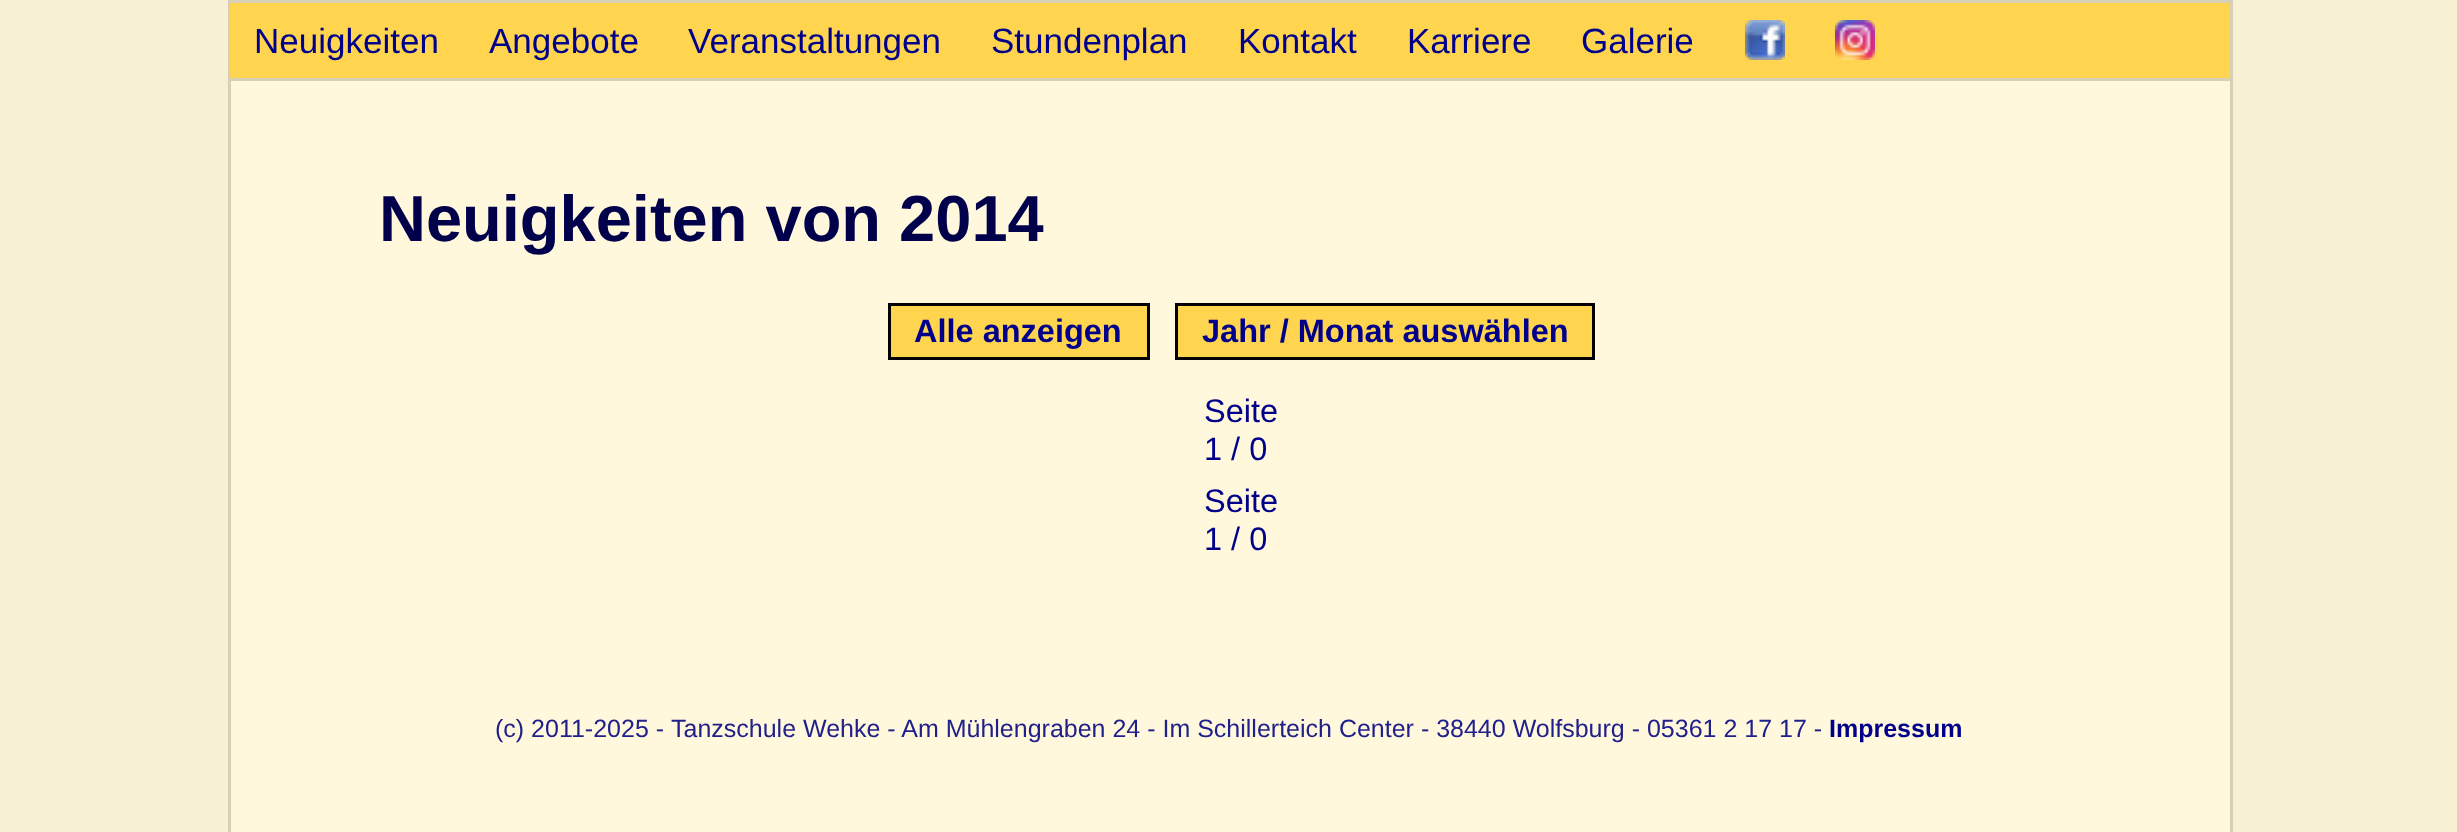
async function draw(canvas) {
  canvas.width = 2457;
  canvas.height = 832;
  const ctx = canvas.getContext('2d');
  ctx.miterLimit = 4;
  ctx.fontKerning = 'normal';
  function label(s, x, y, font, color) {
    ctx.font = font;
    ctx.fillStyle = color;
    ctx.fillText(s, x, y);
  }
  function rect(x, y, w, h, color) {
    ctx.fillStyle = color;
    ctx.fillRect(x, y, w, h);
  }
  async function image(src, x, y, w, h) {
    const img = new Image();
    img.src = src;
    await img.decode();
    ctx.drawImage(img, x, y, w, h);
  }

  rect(0, 0, 2457, 832, '#f8f0d5');
  rect(231, 81, 1999, 751, '#fff8dd');
  ctx.strokeStyle = '#d7d0b5';
  ctx.lineWidth = 3;
  ctx.strokeRect(229.5, 1.5, 2002, 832);
  rect(230, 3, 2000, 75, '#ffd44e');
  rect(230, 78, 2000, 3, '#d7d0b5');
  label('Neuigkeiten', 254, 53, '35px Liberation Sans', '#00008b');
  label('Angebote', 489, 53, '35px Liberation Sans', '#00008b');
  label('Veranstaltungen', 688, 53, '35px Liberation Sans', '#00008b');
  label('Stundenplan', 991, 53, '35px Liberation Sans', '#00008b');
  label('Kontakt', 1238, 53, '35px Liberation Sans', '#00008b');
  label('Karriere', 1407, 53, '35px Liberation Sans', '#00008b');
  label('Galerie', 1581, 53, '35px Liberation Sans', '#00008b');
  await image('assets/img1.png', 1745, 20, 40, 40);
  await image('assets/img2.png', 1835, 20, 40, 40);
  label('Neuigkeiten von 2014', 379, 241, 'bold 65px Liberation Sans', '#00004b');
  ctx.fillStyle = '#ffd44e';
  ctx.beginPath();
  ctx.rect(889.5, 304.5, 259, 54);
  ctx.fill();
  ctx.strokeStyle = '#000';
  ctx.stroke();
  label('Alle anzeigen', 914, 342, 'bold 32.5px Liberation Sans', '#00008b');
  ctx.fillStyle = '#ffd44e';
  ctx.beginPath();
  ctx.rect(1176.5, 304.5, 417, 54);
  ctx.fill();
  ctx.stroke();
  label('Jahr / Monat auswählen', 1202, 342, 'bold 32.5px Liberation Sans', '#00008b');
  label('Seite', 1204, 422, '32.5px Liberation Sans', '#00008b');
  label('1 / 0', 1204, 460, '32.5px Liberation Sans', '#00008b');
  label('Seite', 1204, 512, '32.5px Liberation Sans', '#00008b');
  label('1 / 0', 1204, 550, '32.5px Liberation Sans', '#00008b');
  label('(c) 2011-2025 -', 495, 737, '25px Liberation Sans', '#20208b');
  label('Tanzschule Wehke - Am Mühlengraben 24 - Im Schillerteich Center - 38440 Wolfsburg - 05361 2 17 17 -', 671, 737, '25px Liberation Sans', '#20208b');
  label('Impressum', 1829, 737, 'bold 25px Liberation Sans', '#00008b');
}

draw(document.querySelector('canvas'));
